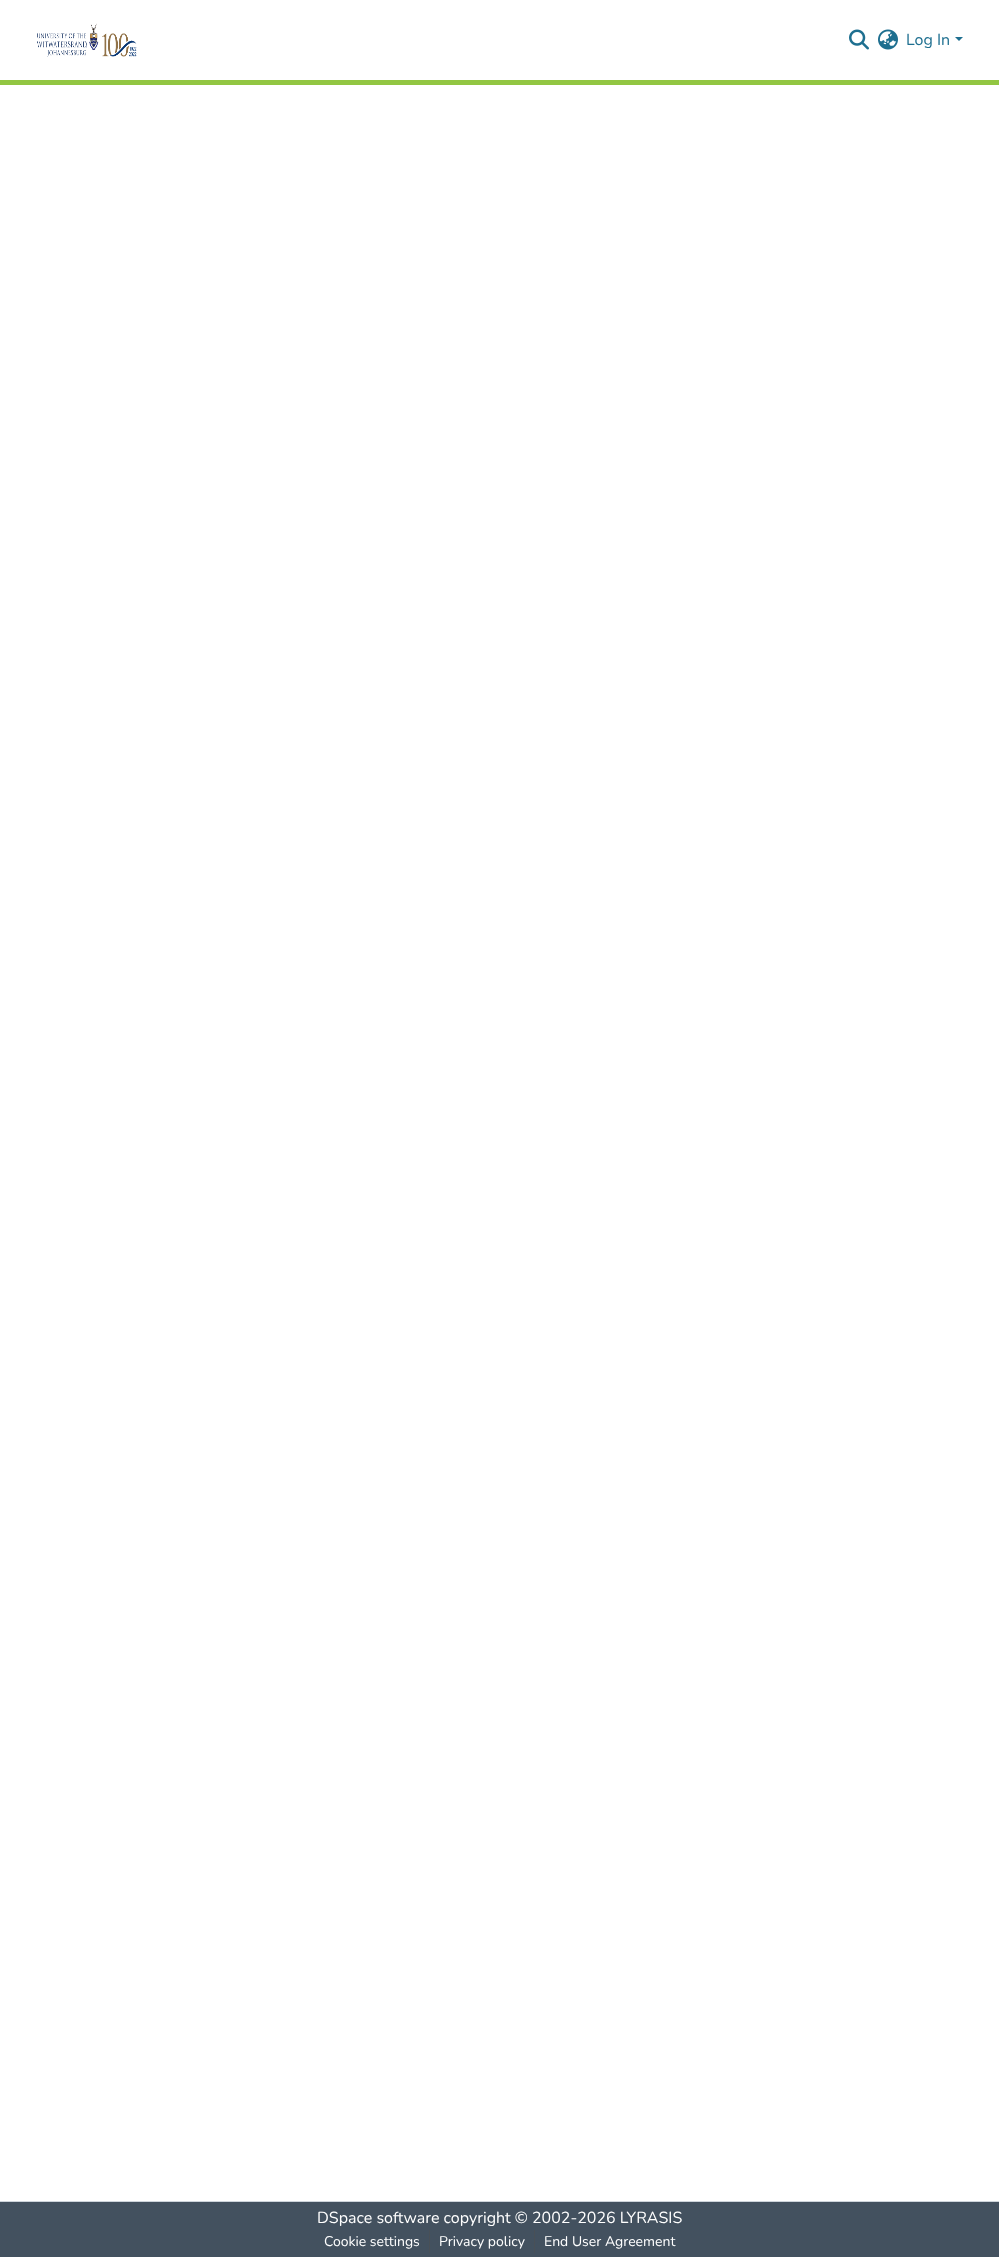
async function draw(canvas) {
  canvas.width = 999;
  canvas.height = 2257;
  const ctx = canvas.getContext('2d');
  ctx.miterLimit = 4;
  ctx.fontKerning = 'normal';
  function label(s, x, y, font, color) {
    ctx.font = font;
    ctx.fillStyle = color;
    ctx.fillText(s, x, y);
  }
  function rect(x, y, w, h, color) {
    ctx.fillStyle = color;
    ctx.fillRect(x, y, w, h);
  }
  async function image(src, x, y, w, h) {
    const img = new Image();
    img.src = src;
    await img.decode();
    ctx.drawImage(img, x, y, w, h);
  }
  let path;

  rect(0, 0, 999, 2257, '#fff');
  rect(0, 80, 999, 5, '#92c642');
  await image('assets/img1.png', 37, 23, 100, 34);
  await image('assets/img2.png', 849, 29, 20, 21);
  await image('assets/img3.png', 878, 29, 20, 21);
  label('Log In', 906, 45, '16px Nunito', '#1e6f90');
  path = new Path2D('M955 37H963L959 41Z');
  ctx.fill(path);
  rect(0, 2202, 999, 55, '#43515f');
  rect(0, 2201, 999, 1, '#ced4da');
  label('DSpace software copyright © 2002-2026 LYRASIS', 317, 2223, '16px Nunito', '#fff');
  label('Cookie settings', 324, 2246, '14px Nunito', '#fff');
  rect(429, 2230, 1, 23, '#495057');
  label('Privacy policy', 439, 2246, '14px Nunito', '#fff');
  rect(534, 2230, 1, 23, '#495057');
  label('End User Agreement', 544, 2246, '14px Nunito', '#fff');
}

draw(document.querySelector('canvas'));
